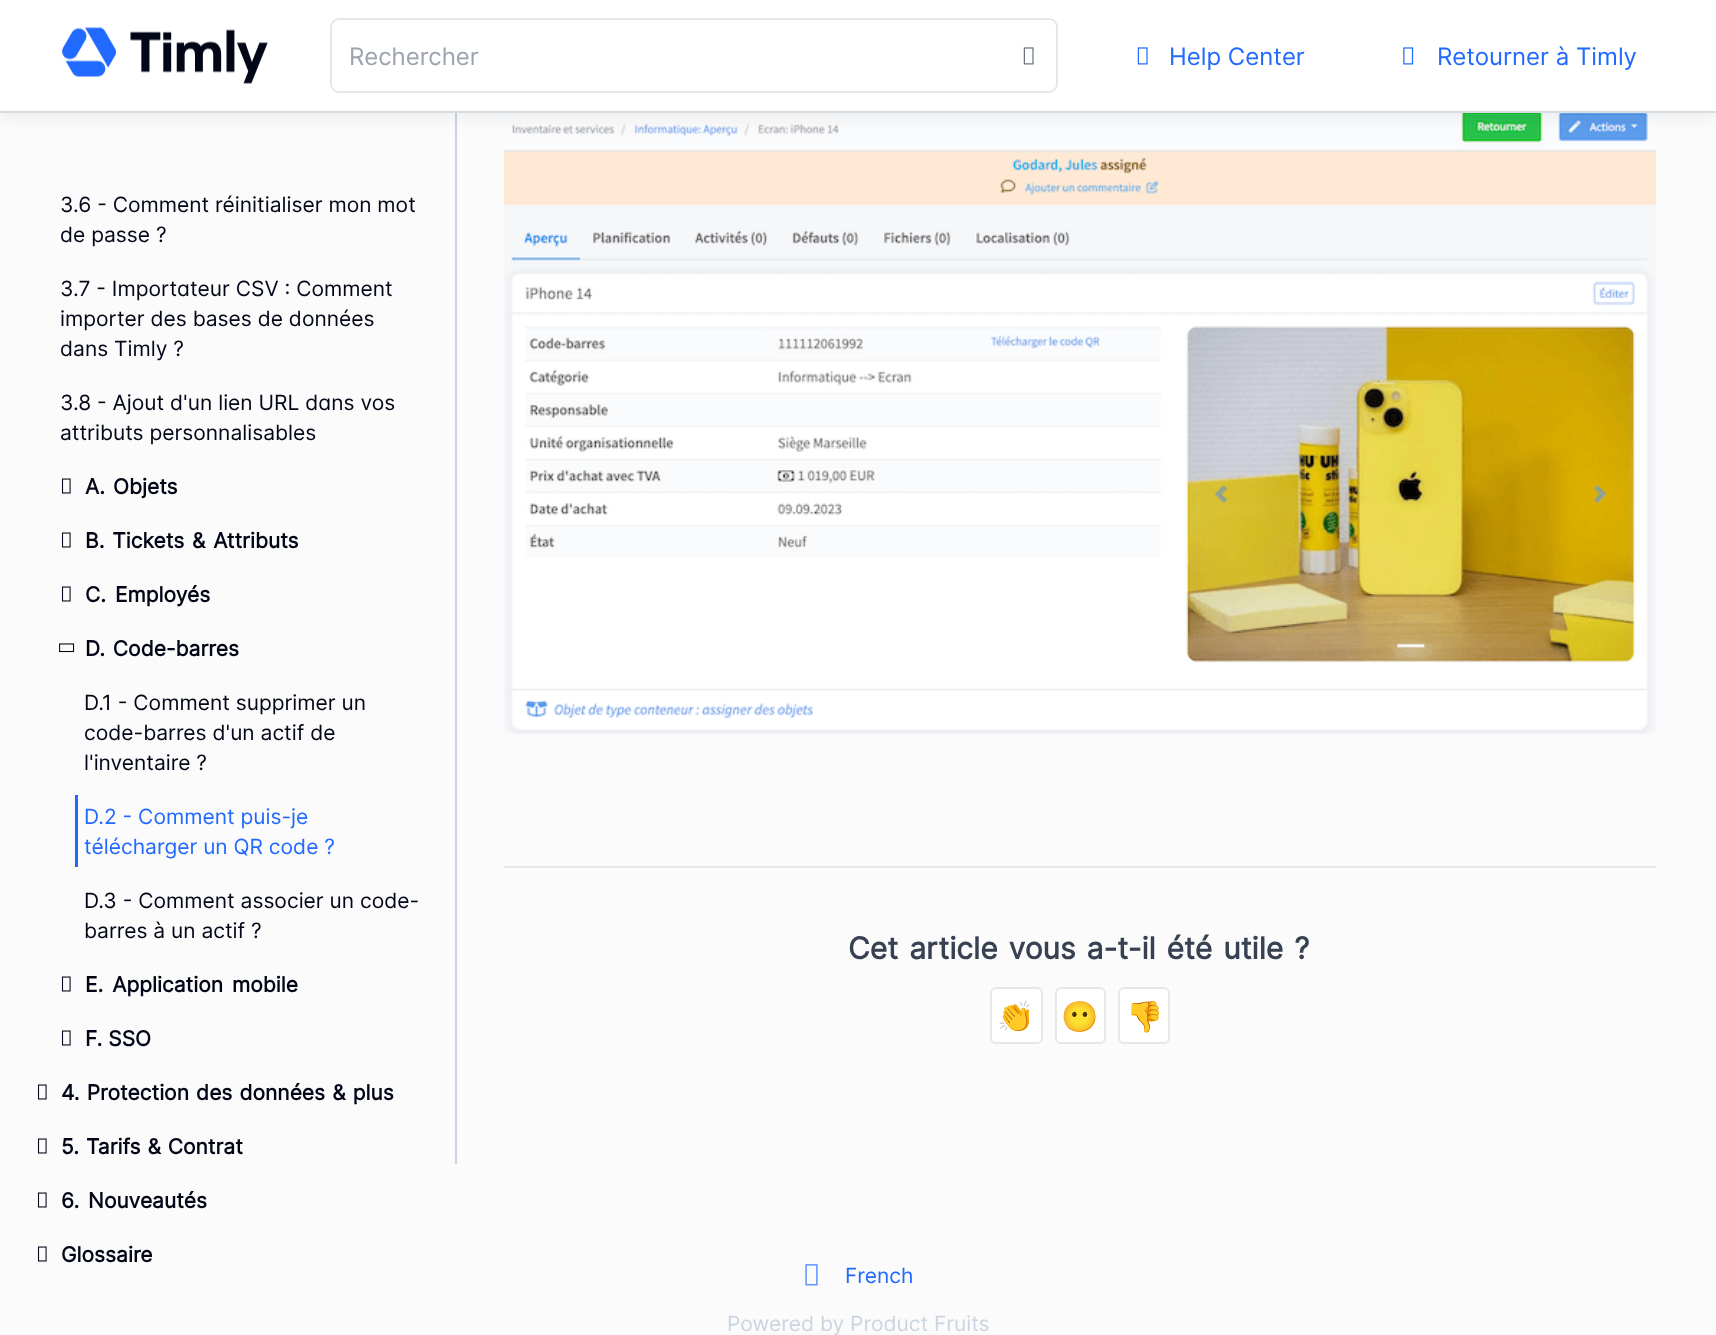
async function draw(canvas) {
  canvas.width = 1716;
  canvas.height = 1335;
  const ctx = canvas.getContext('2d');
  ctx.miterLimit = 4;
  ctx.fontKerning = 'normal';
  function label(s, x, y, font, color) {
    ctx.font = font;
    ctx.fillStyle = color;
    ctx.fillText(s, x, y);
  }
  function rect(x, y, w, h, color) {
    ctx.fillStyle = color;
    ctx.fillRect(x, y, w, h);
  }
  async function image(src, x, y, w, h) {
    const img = new Image();
    img.src = src;
    await img.decode();
    ctx.drawImage(img, x, y, w, h);
  }

  rect(0, 0, 1716, 1335, '#fbfbfb');
  rect(455, 113, 2, 1051, '#cbd5e1');
  await image('assets/img7.png', 504, 113, 1152, 621);
  ctx.fillStyle = '#0000000d';
  ctx.filter = 'blur(7.5px)';
  ctx.beginPath();
  ctx.rect(0, 6, 1716, 113);
  ctx.fill();
  ctx.filter = 'none';
  rect(0, 0, 1716, 111, '#fff');
  rect(0, 111, 1716, 2, '#d4dde3');
  await image('assets/img1.png', 62, 27, 206, 57);
  ctx.beginPath();
  ctx.roundRect(331, 19, 726, 73, 8);
  ctx.strokeStyle = '#e5e7eb';
  ctx.lineWidth = 2;
  ctx.stroke();
  label('Rechercher', 349, 65, '24px Inter', '#9ca3af');
  await image('assets/img2.png', 1023, 47, 11, 18);
  await image('assets/img3.png', 1137, 47, 11, 18);
  label('Help Center', 1169, 65, '24px Inter', '#2169ff');
  await image('assets/img4.png', 1403, 47, 11, 18);
  label('Retourner à Timly', 1437, 65, '24px Inter', '#2169ff');
  label('3.6 - Comment réinitialiser mon mot', 60, 212, '21px Inter', '#020617');
  label('de passe ?', 60, 242, '21px Inter', '#020617');
  label('3.7 - Importateur CSV : Comment', 60, 296, '21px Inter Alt', '#020617');
  label('importer des bases de données', 60, 326, '21px Inter', '#020617');
  label('dans Timly ?', 60, 356, '21px Inter', '#020617');
  label('3.8 - Ajout d\'un lien URL dans vos', 60, 410, '21px Inter Alt', '#020617');
  label('attributs personnalisables', 60, 440, '21px Inter', '#020617');
  await image('assets/img5.png', 61, 478, 10, 16);
  ctx.wordSpacing = '2px';
  label('A. Objets', 85, 494, 'bold 21px Inter', '#020617');
  await image('assets/img5.png', 61, 532, 10, 16);
  label('B. Tickets & Attributs', 85, 548, 'bold 21px Inter', '#020617');
  await image('assets/img5.png', 61, 586, 10, 16);
  ctx.wordSpacing = '3px';
  label('C. Employés', 85, 602, 'bold 21px Inter', '#020617');
  await image('assets/img6.png', 59, 643, 16, 10);
  ctx.wordSpacing = '2px';
  label('D. Code-barres', 85, 656, 'bold 21px Inter', '#020617');
  ctx.wordSpacing = '0px';
  label('D.1 - Comment supprimer un', 84, 710, '21px Inter', '#020617');
  label('code-barres d\'un actif de', 84, 740, '21px Inter', '#020617');
  label('l\'inventaire ?', 84, 770, '21px Inter', '#020617');
  rect(75, 795, 3, 72, '#2169ff');
  label('D.2 - Comment puis-je', 84, 824, '21px Inter', '#2169ff');
  label('télécharger un QR code ?', 84, 854, '21px Inter', '#2169ff');
  label('D.3 - Comment associer un code-', 84, 908, '21px Inter', '#020617');
  label('barres à un actif ?', 84, 938, '21px Inter', '#020617');
  await image('assets/img5.png', 61, 976, 10, 16);
  ctx.wordSpacing = '3px';
  label('E. Application mobile', 85, 992, 'bold 21px Inter', '#020617');
  await image('assets/img5.png', 61, 1030, 10, 16);
  ctx.wordSpacing = '0px';
  label('F. SSO', 85, 1046, 'bold 21px Inter', '#020617');
  await image('assets/img5.png', 37, 1084, 10, 16);
  ctx.wordSpacing = '1.25px';
  label('4. Protection des données & plus', 61, 1100, 'bold 21px Inter', '#020617');
  await image('assets/img5.png', 37, 1138, 10, 16);
  ctx.wordSpacing = '1px';
  label('5. Tarifs & Contrat', 61, 1154, 'bold 21px Inter', '#020617');
  await image('assets/img5.png', 37, 1192, 10, 16);
  ctx.wordSpacing = '3px';
  label('6. Nouveautés', 61, 1208, 'bold 21px Inter', '#020617');
  await image('assets/img5.png', 37, 1246, 10, 16);
  ctx.wordSpacing = '0px';
  label('Glossaire', 61, 1262, 'bold 21px Inter', '#020617');
  rect(504, 866, 1152, 2, '#e5e7eb');
  ctx.wordSpacing = '2.5px';
  label('Cet article vous a-t-il été utile ?', 848, 959, 'bold 30px Inter', '#374151');
  ctx.fillStyle = '#fff';
  ctx.beginPath();
  ctx.roundRect(991, 988, 51, 55, 5);
  ctx.fill();
  ctx.stroke();
  ctx.wordSpacing = '0px';
  label('👏', 997, 1027, '30px Noto Color Emoji', '#020617');
  ctx.fillStyle = '#fff';
  ctx.beginPath();
  ctx.roundRect(1056, 988, 49, 55, 5);
  ctx.fill();
  ctx.stroke();
  label('😶', 1061, 1027, '30px Noto Color Emoji', '#020617');
  ctx.fillStyle = '#fff';
  ctx.beginPath();
  ctx.roundRect(1119, 988, 50, 55, 5);
  ctx.fill();
  ctx.stroke();
  label('👎', 1126, 1027, '30px Noto Color Emoji', '#020617');
  await image('assets/img8.png', 805, 1264, 13, 22);
  label('French', 845, 1283, '21px Inter', '#2169ff');
  label('Powered by Product Fruits', 727, 1331, '21px Inter', '#cbd5e1');
}

draw(document.querySelector('canvas'));
